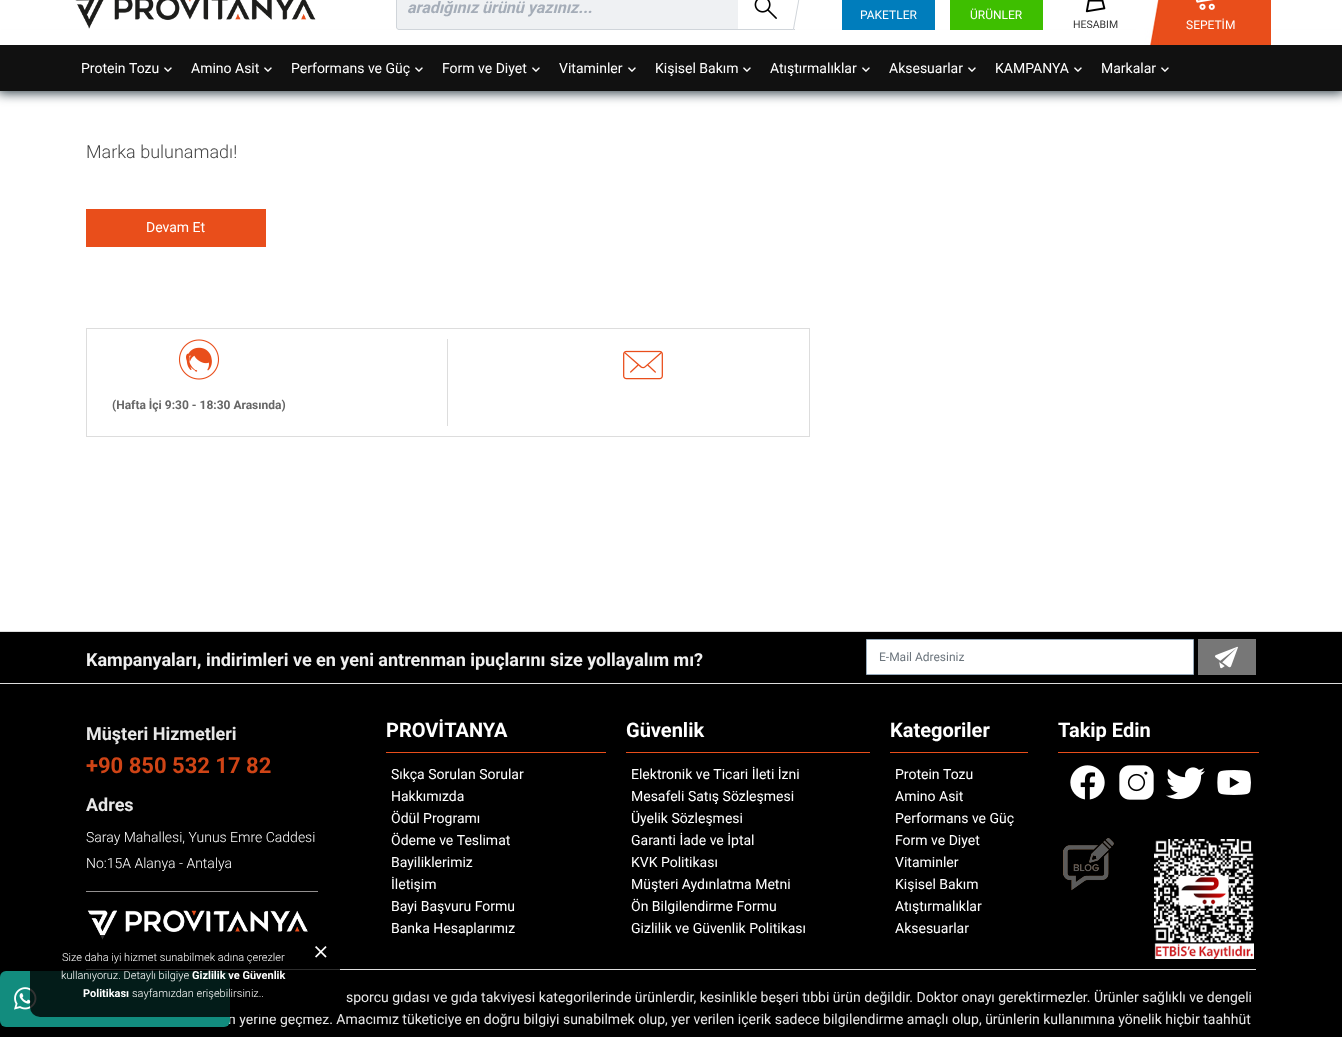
async function draw(canvas) {
  canvas.width = 1342;
  canvas.height = 1037;
  const ctx = canvas.getContext('2d');
  ctx.miterLimit = 4;
  ctx.fontKerning = 'normal';
  function label(s, x, y, font, color) {
    ctx.font = font;
    ctx.fillStyle = color;
    ctx.fillText(s, x, y);
  }
  function rect(x, y, w, h, color) {
    ctx.fillStyle = color;
    ctx.fillRect(x, y, w, h);
  }
  function roundedRect(x, y, w, h, r, color) {
    ctx.fillStyle = color;
    ctx.beginPath();
    ctx.roundRect(x, y, w, h, r);
    ctx.fill();
  }
  async function image(src, x, y, w, h) {
    const img = new Image();
    img.src = src;
    await img.decode();
    ctx.drawImage(img, x, y, w, h);
  }
  let path;

  rect(0, 0, 1342, 1037, '#fff');
  ctx.fillStyle = '#1a2a34e6';
  ctx.filter = 'blur(6px)';
  ctx.beginPath();
  ctx.rect(-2, 43, 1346, 50);
  ctx.fill();
  ctx.filter = 'none';
  rect(0, 30, 1342, 15, '#fff');
  await image('assets/img1.png', 75, 0, 241, 29);
  ctx.fillStyle = '#eff1f3';
  path = new Path2D('M399-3.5H793.5V29.5H399C397.5 29.5 396.5 28.5 396.5 27V-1C396.5-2.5 397.5-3.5 399-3.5Z');
  ctx.fill(path);
  ctx.strokeStyle = '#d0d5da';
  ctx.stroke(path);
  label('aradığınız ürünü yazınız...', 407, 13, 'italic bold 16px Roboto', '#a5adb8');
  ctx.fillStyle = '#fff';
  path = new Path2D('M786-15H802L794 29H778Z');
  ctx.fill(path);
  rect(738, 0, 46, 29, '#fff');
  await image('assets/img2.png', 754, 0, 23, 19);
  ctx.fillStyle = '#d0d5da';
  path = new Path2D('M801-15H802L794 29H793Z');
  ctx.fill(path);
  rect(794, 29, 1, 1, '#d0d5da');
  rect(842, 0, 93, 30, '#007dbc');
  label('PAKETLER', 860, 19, '12px Roboto', '#fff');
  rect(950, 0, 93, 30, '#3ebf00');
  label('ÜRÜNLER', 970, 19, '12px Roboto', '#fff');
  await image('assets/img3.png', 1085, 0, 21, 13);
  label('HESABIM', 1073, 28, '10.5px Roboto', '#333');
  rect(1160, 0, 111, 45, '#e94e1b');
  await image('assets/img4.png', 1136, 0, 24, 45);
  await image('assets/img5.png', 1195, 0, 20, 10);
  label('SEPETİM', 1186, 29, '12px Roboto', '#fff');
  rect(0, 45, 1342, 46, '#111');
  label('Protein Tozu', 81, 73, '14px Roboto', '#fff');
  await image('assets/img6.png', 164, 67, 8, 5);
  label('Amino Asit', 191, 73, '14px Roboto', '#fff');
  await image('assets/img6.png', 264, 67, 8, 5);
  label('Performans ve Güç', 291, 73, '14px Roboto', '#fff');
  await image('assets/img6.png', 415, 67, 8, 5);
  label('Form ve Diyet', 442, 73, '14px Roboto', '#fff');
  await image('assets/img6.png', 532, 67, 8, 5);
  label('Vitaminler', 559, 73, '14px Roboto', '#fff');
  await image('assets/img6.png', 628, 67, 8, 5);
  label('Kişisel Bakım', 655, 73, '14px Roboto', '#fff');
  await image('assets/img6.png', 743, 67, 8, 5);
  label('Atıştırmalıklar', 770, 73, '14px Roboto', '#fff');
  await image('assets/img6.png', 862, 67, 8, 5);
  label('Aksesuarlar', 889, 73, '14px Roboto', '#fff');
  await image('assets/img6.png', 968, 67, 8, 5);
  label('KAMPANYA', 995, 73, '14px Roboto', '#fff');
  await image('assets/img6.png', 1074, 67, 8, 5);
  label('Markalar', 1101, 73, '14px Roboto', '#fff');
  await image('assets/img6.png', 1161, 67, 8, 5);
  label('Marka bulunamadı!', 86, 158, '300 18px Roboto', '#444');
  rect(86, 209, 180, 38, '#e94e1b');
  label('Devam Et', 146, 232, '14px Roboto', '#fff');
  ctx.strokeStyle = '#ddd';
  ctx.strokeRect(86.5, 328.5, 723, 108);
  await image('assets/img7.png', 623, 350, 40, 30);
  rect(447, 339, 1, 87, '#ddd');
  await image('assets/img8.png', 178, 339, 42, 41);
  label('(Hafta İçi 9:30 - 18:30 Arasında)', 112, 409, 'bold 12px Roboto', '#666');
  rect(0, 632, 1342, 405, '#000');
  rect(0, 631, 1342, 1, '#ddd');
  label('Kampanyaları, indirimleri ve en yeni antrenman ipuçlarını size yollayalım mı?', 86, 666, 'bold 18px Roboto', '#efefef');
  ctx.fillStyle = '#fff';
  ctx.beginPath();
  ctx.rect(866.5, 639.5, 327, 35);
  ctx.fill();
  ctx.strokeStyle = '#98abbc';
  ctx.stroke();
  label('E-Mail Adresiniz', 879, 661, '12px Roboto', '#6c757d');
  rect(1198, 639, 58, 36, '#777');
  await image('assets/img9.png', 1215, 646, 23, 23);
  rect(0, 683, 1342, 1, '#ddd');
  label('Müşteri Hizmetleri', 86, 740, 'bold 18px Roboto', '#e7e7e7');
  label('+90 850 532 17 82', 86, 773, 'bold 22px Roboto', '#cf4416');
  label('Adres', 86, 811, 'bold 18px Roboto', '#e7e7e7');
  label('Saray Mahallesi, Yunus Emre Caddesi', 86, 842, '300 14px Roboto', '#fff');
  label('No:15A Alanya - Antalya', 86, 868, '300 14px Roboto', '#fff');
  rect(86, 891, 232, 1, '#939090');
  await image('assets/img10.png', 87, 910, 221, 30);
  rect(386, 752, 220, 1, '#e94e1b');
  label('PROVİTANYA', 386, 737, 'bold 20px Roboto', '#fff');
  label('Sıkça Sorulan Sorular', 391, 779, '14px Roboto', '#fff');
  label('Hakkımızda', 391, 801, '14px Roboto', '#fff');
  label('Ödül Programı', 391, 823, '14px Roboto', '#fff');
  label('Ödeme ve Teslimat', 391, 845, '14px Roboto', '#fff');
  label('Bayiliklerimiz', 391, 867, '14px Roboto', '#fff');
  label('İletişim', 391, 889, '14px Roboto', '#fff');
  label('Bayi Başvuru Formu', 391, 911, '14px Roboto', '#fff');
  label('Banka Hesaplarımız', 391, 933, '14px Roboto', '#fff');
  rect(626, 752, 244, 1, '#e94e1b');
  label('Güvenlik', 626, 737, 'bold 20px Roboto', '#fff');
  label('Elektronik ve Ticari İleti İzni', 631, 779, '14px Roboto', '#fff');
  label('Mesafeli Satış Sözleşmesi', 631, 801, '14px Roboto', '#fff');
  label('Üyelik Sözleşmesi', 631, 823, '14px Roboto', '#fff');
  label('Garanti İade ve İptal', 631, 845, '14px Roboto', '#fff');
  label('KVK Politikası', 631, 867, '14px Roboto', '#fff');
  label('Müşteri Aydınlatma Metni', 631, 889, '14px Roboto', '#fff');
  label('Ön Bilgilendirme Formu', 631, 911, '14px Roboto', '#fff');
  label('Gizlilik ve Güvenlik Politikası', 631, 933, '14px Roboto', '#fff');
  rect(890, 752, 138, 1, '#e94e1b');
  label('Kategoriler', 890, 737, 'bold 20px Roboto', '#fff');
  label('Protein Tozu', 895, 779, '14px Roboto', '#fff');
  label('Amino Asit', 895, 801, '14px Roboto', '#fff');
  label('Performans ve Güç', 895, 823, '14px Roboto', '#fff');
  label('Form ve Diyet', 895, 845, '14px Roboto', '#fff');
  label('Vitaminler', 895, 867, '14px Roboto', '#fff');
  label('Kişisel Bakım', 895, 889, '14px Roboto', '#fff');
  label('Atıştırmalıklar', 895, 911, '14px Roboto', '#fff');
  label('Aksesuarlar', 895, 933, '14px Roboto', '#fff');
  rect(1058, 752, 201, 1, '#e94e1b');
  label('Takip Edin', 1058, 737, 'bold 20px Roboto', '#fff');
  await image('assets/img11.png', 1070, 765, 35, 35);
  await image('assets/img12.png', 1119, 765, 35, 35);
  await image('assets/img13.png', 1166, 767, 39, 33);
  await image('assets/img14.png', 1217, 770, 34, 25);
  await image('assets/img15.png', 1063, 838, 51, 53);
  await image('assets/img16.png', 1154, 839, 100, 120);
  rect(86, 969, 1170, 1, '#ddd');
  label('sporcu gıdası ve gıda takviyesi kategorilerinde ürünlerdir, kesinlikle beşeri tıbbi ürün değildir. Doktor onayı gerektirmezler. Ürünler sağlıklı ve dengeli', 346, 1002, '14px Roboto', '#e7e7e7');
  label('n yerine geçmez. Amacımız tüketiciye en doğru bilgiyi sunabilmek olup, yer verilen içerik sadece bilgilendirme amaçlı olup, ürünlerin kullanımına yönelik hiçbir taahhüt', 228, 1024, '14px Roboto', '#e7e7e7');
  roundedRect(0, 971, 230, 56, 6, '#128c7e');
  await image('assets/img17.png', 14, 987, 23, 23);
  roundedRect(30, 935, 310, 82, 10, '#000000cc');
  label('Size daha iyi hizmet sunabilmek adına çerezler', 62, 961, '300 11px Roboto', '#fff');
  await image('assets/img18.png', 315, 946, 12, 12);
  label('kullanıyoruz. Detaylı bilgiye', 61, 979, '300 11px Roboto', '#fff');
  label('Gizlilik ve Güvenlik', 192, 979, 'bold 11px Roboto', '#fff');
  label('Politikası', 83, 997, 'bold 11px Roboto', '#fff');
  label('sayfamızdan erişebilirsiniz..', 132, 997, '300 11px Roboto', '#fff');
}

draw(document.querySelector('canvas'));
